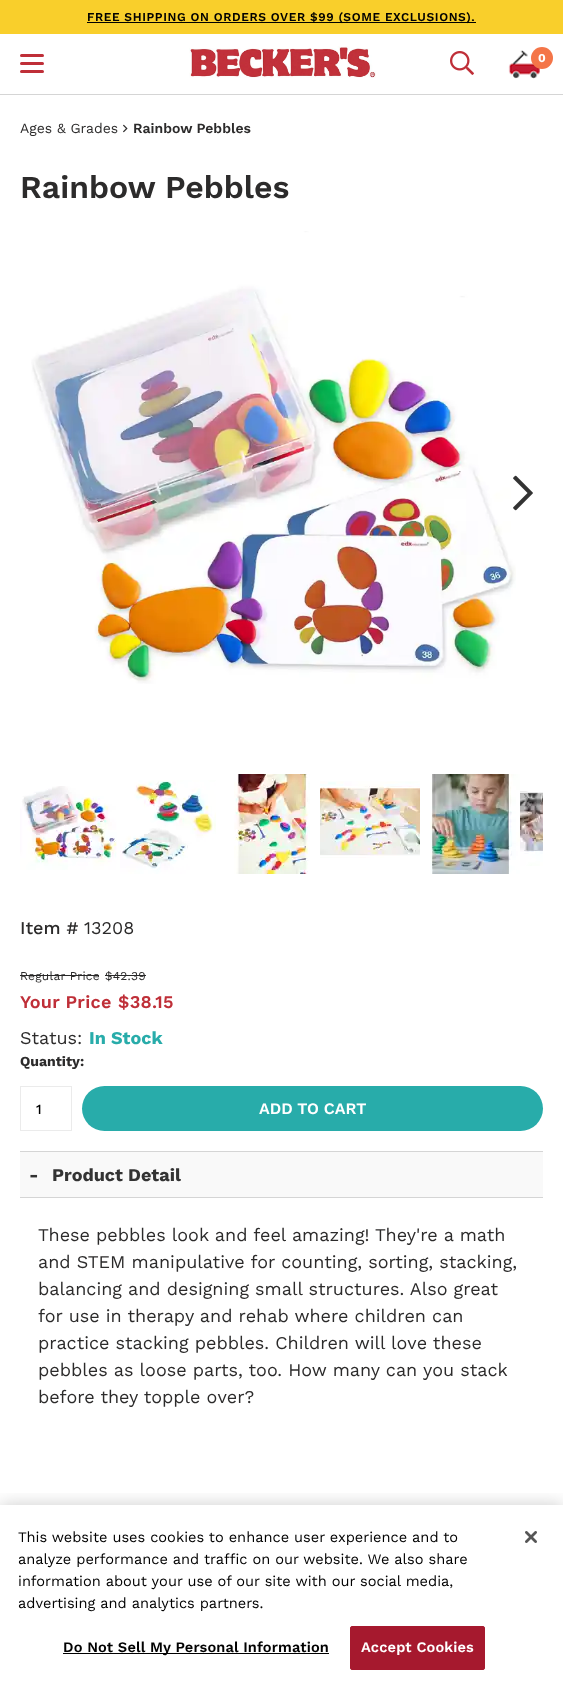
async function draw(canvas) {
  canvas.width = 563;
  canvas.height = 1686;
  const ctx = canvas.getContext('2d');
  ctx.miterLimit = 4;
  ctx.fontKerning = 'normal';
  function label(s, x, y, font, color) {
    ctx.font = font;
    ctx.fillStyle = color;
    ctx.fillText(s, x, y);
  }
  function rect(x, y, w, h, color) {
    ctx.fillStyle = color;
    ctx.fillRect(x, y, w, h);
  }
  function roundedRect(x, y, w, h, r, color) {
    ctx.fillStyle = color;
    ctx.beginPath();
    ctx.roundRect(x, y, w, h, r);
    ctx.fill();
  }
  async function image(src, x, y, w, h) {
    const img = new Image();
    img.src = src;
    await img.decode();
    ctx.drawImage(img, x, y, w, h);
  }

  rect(0, 0, 563, 1686, '#fff');
  rect(0, 94, 563, 1, '#d5d5d5');
  rect(0, 0, 563, 34, '#f9cf2b');
  rect(87, 22, 389, 1, '#000');
  ctx.letterSpacing = '0.6px';
  label('FREE SHIPPING ON ORDERS OVER $99 (SOME EXCLUSIONS).', 87, 21, '600 12px Work Sans', '#010101');
  roundedRect(20, 54, 24, 3, 1.5, '#bf2f38');
  roundedRect(20, 62, 24, 3, 1.5, '#bf2f38');
  roundedRect(20, 70, 24, 3, 1.5, '#bf2f38');
  await image('assets/img1.png', 189, 46, 187, 32);
  await image('assets/img2.png', 450, 51, 24, 24);
  await image('assets/img3.png', 508, 50, 32, 29);
  ctx.fillStyle = '#f47548';
  ctx.beginPath();
  ctx.arc(542, 58, 11, 0, 2 * Math.PI);
  ctx.fill();
  ctx.letterSpacing = '0px';
  label('0', 538, 62, 'bold 12px Work Sans', '#fff');
  label('Ages & Grades', 20, 133, '14px Work Sans', '#2c2b2b');
  await image('assets/img4.png', 123, 124, 5, 9);
  label('Rainbow Pebbles', 133, 133, '600 14px Work Sans', '#2c2b2b');
  label('Rainbow Pebbles', 20, 198, '600 32px Work Sans', '#2c2b2b');
  await image('assets/img5.png', 31, 231, 485, 453);
  await image('assets/img6.png', 513, 475, 20, 36);
  await image('assets/img7.png', 20, 786, 97, 84);
  await image('assets/img8.png', 120, 780, 96, 94);
  await image('assets/img9.png', 234, 774, 76, 100);
  await image('assets/img10.png', 320, 781, 100, 77);
  await image('assets/img11.png', 430, 774, 90, 100);
  await image('assets/img12.png', 520, 791, 23, 75);
  label('Item #', 20, 934, '500 18px Work Sans', '#2c2b2b');
  label('13208', 84, 934, '18px Work Sans', '#2c2b2b');
  ctx.letterSpacing = '0.25px';
  label('Regular Price', 20, 980, '12px Work Sans', '#2c2b2b');
  rect(20, 975, 79, 1, '#272727');
  label('$42.39', 105, 980, '12px Work Sans', '#2c2b2b');
  rect(105, 975, 41, 1, '#272727');
  label('Your Price', 20, 1008, '600 18px Work Sans', '#bf2f38');
  label('$38.15', 118, 1008, '600 18px Work Sans', '#bf2f38');
  ctx.letterSpacing = '0px';
  label('Status:', 20, 1044, '18px Work Sans', '#2c2b2b');
  label('In Stock', 89, 1044, 'bold 18px Work Sans', '#28acaa');
  label('Quantity:', 20, 1066, 'bold 14px Work Sans', '#2c2b2b');
  ctx.strokeStyle = '#ebebeb';
  ctx.strokeRect(20.5, 1086.5, 51, 44);
  label('1', 36, 1114, '500 14px Work Sans', '#010101');
  roundedRect(82, 1086, 461, 45, 22.5, '#28acaa');
  label('ADD TO CART', 259, 1114, '600 16px Work Sans', '#fff');
  rect(20, 1152, 523, 45, '#f9f9f9');
  rect(20, 1151, 523, 1, '#d5d5d5');
  rect(20, 1197, 523, 1, '#d5d5d5');
  label('-', 29, 1181, 'bold 18px Work Sans', '#333');
  label('Product Detail', 52, 1181, 'bold 18px Work Sans', '#333');
  label('These pebbles look and feel amazing! They\'re a math', 38, 1241, '18px Work Sans', '#2c2b2b');
  label('and STEM manipulative for counting, sorting, stacking,', 38, 1268, '18px Work Sans', '#2c2b2b');
  label('balancing and designing small structures. Also great', 38, 1295, '18px Work Sans', '#2c2b2b');
  label('for use in therapy and rehab where children can', 38, 1322, '18px Work Sans', '#2c2b2b');
  label('practice stacking pebbles. Children will love these', 38, 1349, '18px Work Sans', '#2c2b2b');
  label('pebbles as loose parts, too. How many can you stack', 38, 1376, '18px Work Sans', '#2c2b2b');
  label('before they topple over?', 38, 1403, '18px Work Sans', '#2c2b2b');
  ctx.save();
  ctx.beginPath();
  ctx.rect(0, 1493, 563, 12);
  ctx.clip();
  ctx.fillStyle = '#00000033';
  ctx.filter = 'blur(9px)';
  ctx.beginPath();
  ctx.rect(0, 1505, 563, 181);
  ctx.fill();
  ctx.filter = 'none';
  ctx.restore();
  label('This website uses cookies to enhance user experience and to', 18, 1542, '14.6px Work Sans', '#010101');
  label('analyze performance and traffic on our website. We also share', 18, 1564, '14.6px Work Sans', '#010101');
  label('information about your use of our site with our social media,', 18, 1586, '14.6px Work Sans', '#010101');
  label('advertising and analytics partners.', 18, 1608, '14.6px Work Sans', '#010101');
  rect(63, 1653, 266, 1, '#000');
  ctx.letterSpacing = '0.15px';
  label('Do Not Sell My Personal Information', 63, 1652, '600 14.6px Work Sans', '#010101');
  ctx.fillStyle = '#a6192e';
  ctx.beginPath();
  ctx.roundRect(350.5, 1626.5, 134, 43, 1.5);
  ctx.fill();
  ctx.strokeStyle = '#a6192e';
  ctx.stroke();
  label('Accept Cookies', 361, 1652, '600 14.6px Work Sans', '#fff');
  await image('assets/img13.png', 525, 1531, 12, 12);
}

draw(document.querySelector('canvas'));
